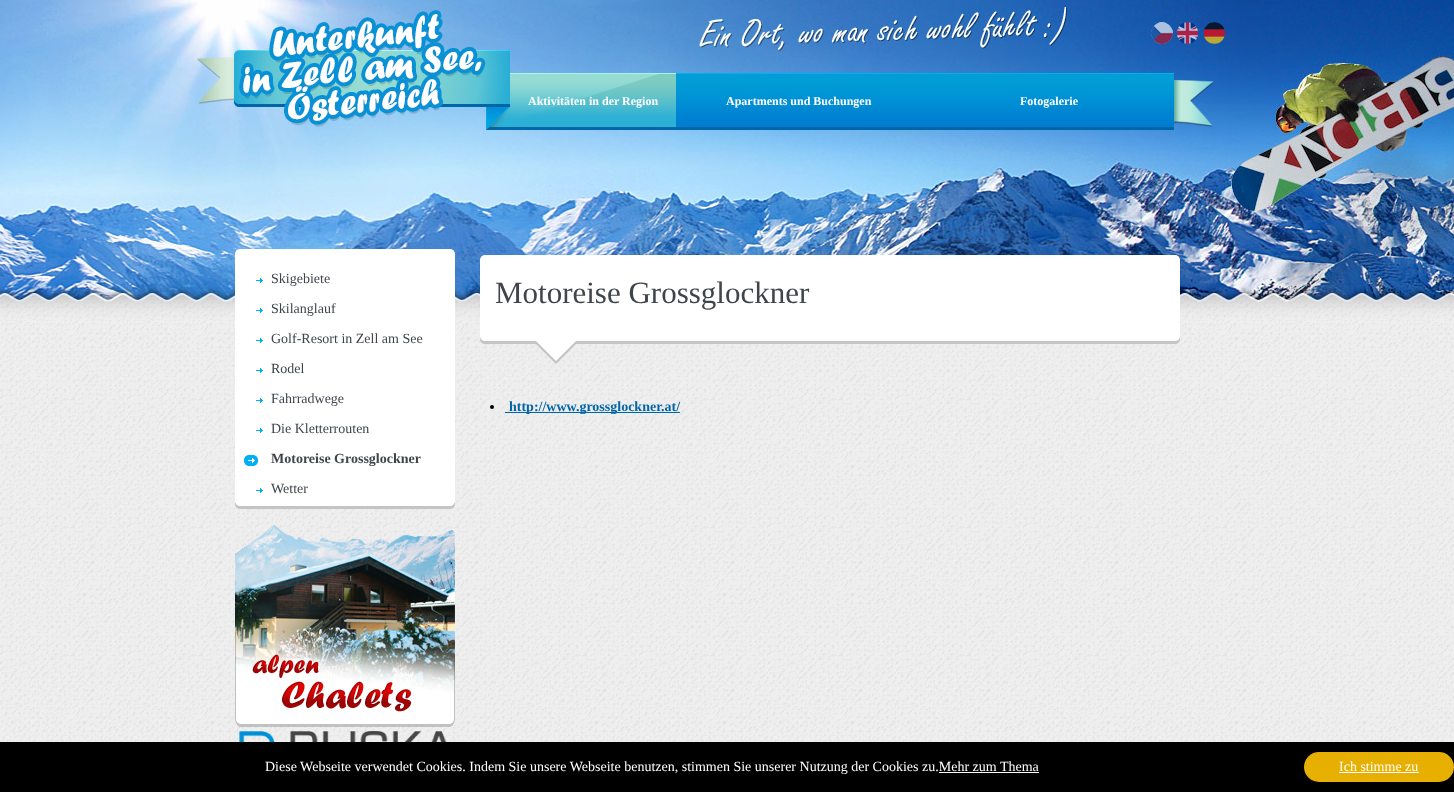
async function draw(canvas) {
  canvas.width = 1454;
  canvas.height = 792;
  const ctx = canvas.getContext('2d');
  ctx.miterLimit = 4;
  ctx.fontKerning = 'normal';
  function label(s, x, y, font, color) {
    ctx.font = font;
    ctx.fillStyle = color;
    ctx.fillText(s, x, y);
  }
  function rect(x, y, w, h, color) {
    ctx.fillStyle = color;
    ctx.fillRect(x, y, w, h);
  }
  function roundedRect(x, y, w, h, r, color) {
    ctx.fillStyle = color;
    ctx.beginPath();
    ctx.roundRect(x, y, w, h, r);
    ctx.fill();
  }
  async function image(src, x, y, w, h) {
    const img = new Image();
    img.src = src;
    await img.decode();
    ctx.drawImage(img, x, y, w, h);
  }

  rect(0, 0, 1454, 792, '#fff');
  await image('assets/img1.png', 0, 320, 1454, 422);
  await image('assets/img2.png', 0, 0, 1454, 302);
  await image('assets/img3.png', 234, 10, 252, 117);
  await image('assets/img4.png', 699, 7, 368, 44);
  await image('assets/img5.png', 1151, 22, 22, 22);
  await image('assets/img6.png', 1151, 22, 22, 22);
  await image('assets/img7.png', 1177, 22, 21, 22);
  await image('assets/img8.png', 1177, 22, 21, 22);
  await image('assets/img9.png', 1203, 22, 22, 22);
  await image('assets/img10.png', 1203, 22, 22, 22);
  await image('assets/img11.png', 197, 57, 37, 47);
  await image('assets/img12.png', 486, 50, 190, 80);
  label('Aktivitäten in der Region', 528, 105, 'bold 12px Liberation Serif', '#fff');
  await image('assets/img13.png', 676, 73, 284, 57);
  label('Apartments und Buchungen', 726, 105, 'bold 12px Liberation Serif', '#fff');
  await image('assets/img14.png', 960, 73, 214, 57);
  label('Fotogalerie', 1020, 105, 'bold 12px Liberation Serif', '#fff');
  await image('assets/img15.png', 1174, 80, 40, 47);
  await image('assets/img16.png', 235, 249, 220, 10);
  await image('assets/img17.png', 235, 499, 220, 10);
  await image('assets/img23.png', 0, 287, 1454, 33);
  rect(235, 259, 220, 240, '#fff');
  await image('assets/img18.png', 256, 278, 7, 5);
  label('Skigebiete', 271, 283, '14px Liberation Serif', '#3f454b');
  await image('assets/img18.png', 256, 308, 7, 5);
  label('Skilanglauf', 271, 313, '14px Liberation Serif', '#3f454b');
  await image('assets/img18.png', 256, 338, 7, 5);
  label('Golf-Resort in Zell am See', 271, 343, '14px Liberation Serif', '#3f454b');
  await image('assets/img18.png', 256, 368, 7, 5);
  label('Rodel', 271, 373, '14px Liberation Serif', '#3f454b');
  await image('assets/img18.png', 256, 398, 7, 5);
  label('Fahrradwege', 271, 403, '14px Liberation Serif', '#3f454b');
  await image('assets/img18.png', 256, 428, 7, 5);
  label('Die Kletterrouten', 271, 433, '14px Liberation Serif', '#3f454b');
  await image('assets/img19.png', 244, 455, 14, 11);
  label('Motoreise Grossglockner', 271, 463, 'bold 14px Liberation Serif', '#3f454b');
  await image('assets/img18.png', 256, 488, 7, 5);
  label('Wetter', 271, 493, '14px Liberation Serif', '#3f454b');
  await image('assets/img20.png', 235, 524, 220, 203);
  await image('assets/img21.png', 239, 731, 208, 11);
  await image('assets/img22.png', 480, 255, 700, 109);
  label('Motoreise Grossglockner', 495, 303, '31px Liberation Serif', '#3f454b');
  ctx.fillStyle = '#000';
  ctx.beginPath();
  ctx.arc(492, 407, 2, 0, 2 * Math.PI);
  ctx.fill();
  rect(505, 412, 175, 1, '#0166a7');
  label('http://www.grossglockner.at/', 509, 411, 'bold 14px Liberation Serif', '#0166a7');
  rect(0, 742, 1454, 50, '#000');
  label('Diese Webseite verwendet Cookies. Indem Sie unsere Webseite benutzen, stimmen Sie unserer Nutzung der Cookies zu.Mehr zum Thema', 265, 771, '14px Liberation Serif', '#fff');
  roundedRect(1304, 752, 150, 30, 15, '#e7af00');
  label('Ich stimme zu', 1339, 771, '14px Liberation Serif', '#fff');
  rect(1339, 772, 80, 1, '#fff');
  rect(939, 772, 100, 1, '#fff');
}

draw(document.querySelector('canvas'));
